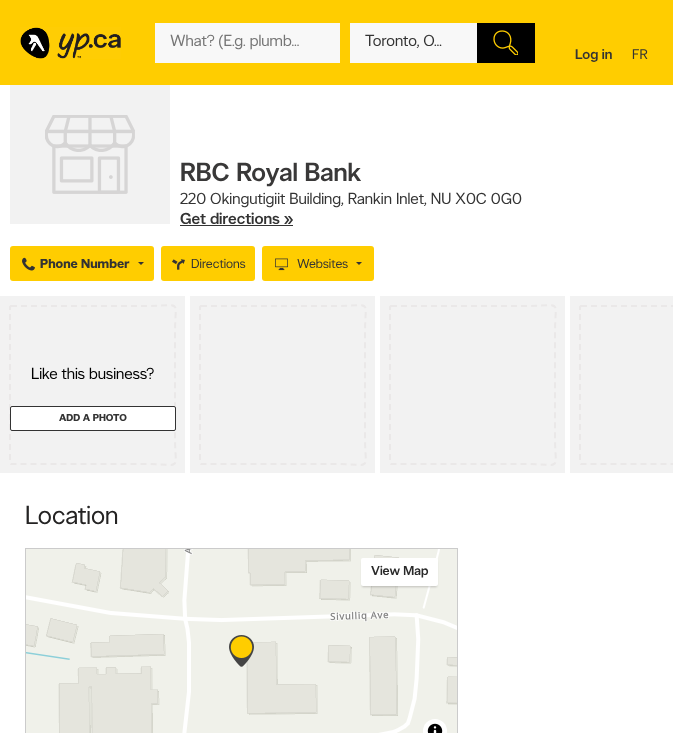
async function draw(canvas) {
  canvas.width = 673;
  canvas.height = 733;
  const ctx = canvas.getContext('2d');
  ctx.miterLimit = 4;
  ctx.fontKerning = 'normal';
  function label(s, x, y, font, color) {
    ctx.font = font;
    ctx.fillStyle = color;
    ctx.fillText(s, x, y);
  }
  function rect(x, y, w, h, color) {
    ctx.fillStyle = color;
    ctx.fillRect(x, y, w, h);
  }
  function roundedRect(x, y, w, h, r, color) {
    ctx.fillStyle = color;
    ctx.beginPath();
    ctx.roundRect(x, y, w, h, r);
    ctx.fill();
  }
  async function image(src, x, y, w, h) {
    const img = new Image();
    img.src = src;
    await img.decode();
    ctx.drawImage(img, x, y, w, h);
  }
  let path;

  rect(0, 0, 673, 733, '#fff');
  rect(0, 0, 673, 85, '#ffcd00');
  await image('assets/img1.png', 20, 27, 101, 32);
  rect(155, 23, 185, 40, '#f8f8f8');
  label('What? (E.g. plumb…', 170, 46, '16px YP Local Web', '#757575');
  rect(350, 23, 127, 40, '#f8f8f8');
  label('Toronto, O…', 365, 46, '16px YP Local Web', '#333');
  rect(477, 23, 58, 40, '#000');
  await image('assets/img2.png', 493, 30, 25, 25);
  label('Log in', 575, 59, '500 14px YP Local Web', '#333');
  label('FR', 632, 59, '14px YP Local Web', '#333');
  await image('assets/img3.png', 10, 85, 160, 139);
  label('RBC Royal Bank', 180, 181, '500 26px YP Local Web', '#393838');
  label('220 Okingutigiit Building, Rankin Inlet, NU X0C 0G0', 180, 204, '16px YP Local Web', '#333');
  label('Get directions »', 180, 224, '500 16px YP Local Web', '#333');
  rect(180, 225, 113, 1, '#333');
  roundedRect(10, 246, 144, 35, 3, '#ffcd00');
  await image('assets/img4.png', 22, 257, 13, 14);
  label('Phone Number', 40, 268, 'bold 13px YP Local Web', '#333');
  path = new Path2D('M138 262H144L141 265Z');
  ctx.fill(path);
  roundedRect(161, 246, 94, 35, 3, '#ffcd00');
  await image('assets/img5.png', 172, 259, 13, 11);
  label('Directions', 191, 268, '13px YP Local Web', '#333');
  roundedRect(262, 246, 112, 35, 3, '#ffcd00');
  await image('assets/img6.png', 275, 258, 13, 13);
  label('Websites', 297, 268, '13px YP Local Web', '#333');
  path = new Path2D('M356 262H362L359 265Z');
  ctx.fill(path);
  rect(0, 296, 185, 177, '#f2f2f2');
  path = new Path2D('M11 306H147C183 306 175 297.5 175 333V437C175 472.5 183 464 147 464H11L10 463V307Z');
  ctx.strokeStyle = '#eae8e8';
  ctx.lineWidth = 2;
  ctx.setLineDash([6, 4]);
  ctx.stroke(path);
  label('Like this business?', 31, 379, '16px YP Local Web', '#000');
  ctx.fillStyle = '#fff';
  ctx.beginPath();
  ctx.roundRect(10.5, 406.5, 165, 24, 1.5);
  ctx.fill();
  ctx.strokeStyle = '#333';
  ctx.lineWidth = 1;
  ctx.setLineDash([]);
  ctx.stroke();
  label('ADD A PHOTO', 59, 421, 'bold 10px YP Local Web', '#333');
  rect(190, 296, 185, 177, '#f2f2f2');
  path = new Path2D('M201 306H337C373 306 365 297.5 365 333V437C365 472.5 373 464 337 464H201L200 463V307Z');
  ctx.strokeStyle = '#eae8e8';
  ctx.lineWidth = 2;
  ctx.setLineDash([6, 4]);
  ctx.stroke(path);
  rect(380, 296, 185, 177, '#f2f2f2');
  path = new Path2D('M391 306H527C563 306 555 297.5 555 333V437C555 472.5 563 464 527 464H391L390 463V307Z');
  ctx.stroke(path);
  rect(570, 296, 103, 177, '#f2f2f2');
  path = new Path2D('M581 306H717C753 306 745 297.5 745 333V437C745 472.5 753 464 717 464H581L580 463V307Z');
  ctx.stroke(path);
  label('Location', 25, 524, '26px YP Local Web', '#242323');
  ctx.strokeStyle = '#cbcbcb';
  ctx.lineWidth = 1;
  ctx.setLineDash([]);
  ctx.strokeRect(25.5, 548.5, 432, 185);
  await image('assets/img7.png', 26, 549, 431, 184);
  await image('assets/img8.png', 229, 635, 25, 32);
  ctx.fillStyle = '#fff';
  ctx.beginPath();
  ctx.arc(435, 731, 12, 0, 2 * Math.PI);
  ctx.fill();
  await image('assets/img9.png', 427, 723, 16, 10);
  ctx.fillStyle = '#00000033';
  ctx.filter = 'blur(1px)';
  ctx.beginPath();
  ctx.roundRect(362, 561, 75, 26, 1);
  ctx.fill();
  ctx.filter = 'none';
  roundedRect(361, 558, 77, 28, 2, '#fff');
  label('View Map', 371, 575, '500 13px YP Local Web', '#292929');
}

draw(document.querySelector('canvas'));
